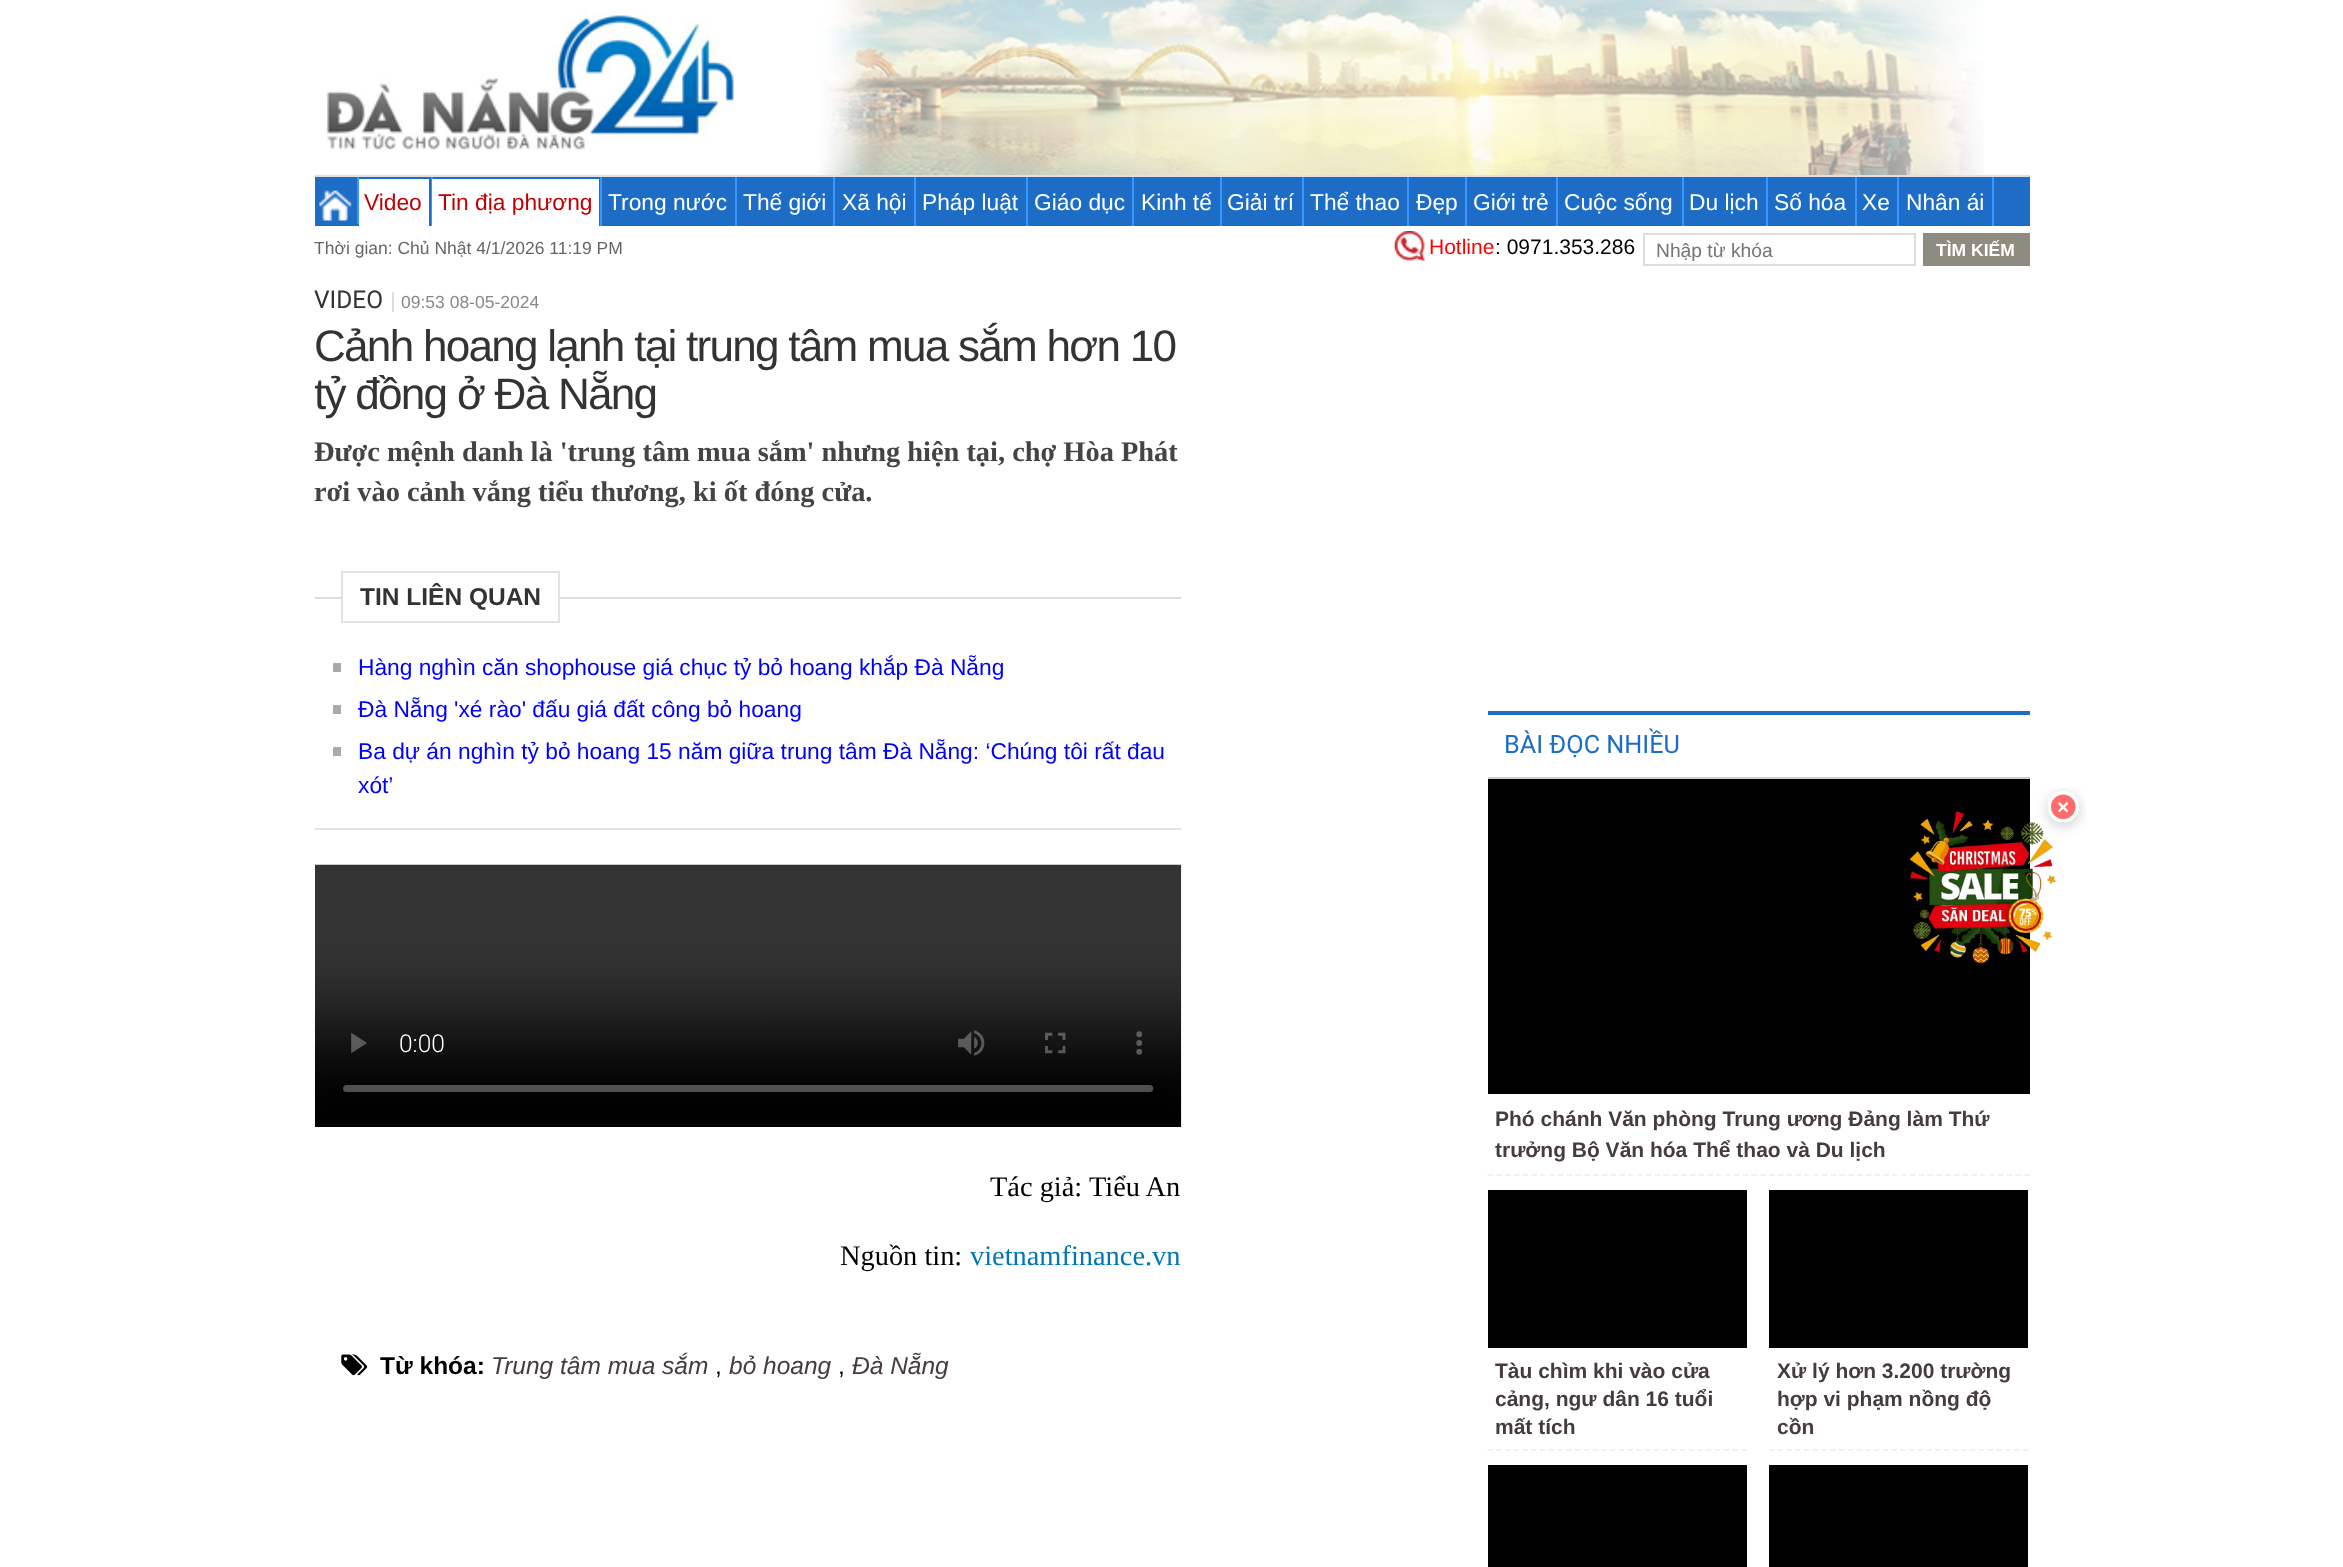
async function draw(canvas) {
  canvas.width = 2343;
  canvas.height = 1567;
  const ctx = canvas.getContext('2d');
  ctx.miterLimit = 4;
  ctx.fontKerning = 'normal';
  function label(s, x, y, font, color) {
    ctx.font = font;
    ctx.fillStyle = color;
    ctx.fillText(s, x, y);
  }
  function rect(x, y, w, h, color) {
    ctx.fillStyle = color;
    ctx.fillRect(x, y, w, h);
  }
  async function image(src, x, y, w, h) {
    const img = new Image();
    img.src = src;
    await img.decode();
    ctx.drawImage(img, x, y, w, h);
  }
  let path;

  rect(0, 0, 2343, 1567, '#fff');
  await image('assets/img1.png', 326, 9, 409, 141);
  await image('assets/img2.png', 818, 0, 1166, 175);
  rect(315, 177, 1715, 49, '#1d6cc6');
  rect(315, 175, 1715, 2, '#e0e0e0');
  rect(357, 177, 2, 47, '#3995ff');
  await image('assets/img3.png', 319, 190, 33, 31);
  rect(431, 177, 2, 49, '#3995ff');
  rect(359, 179, 70, 47, '#fff');
  label('Video', 364, 210, '22.75px Liberation Sans', '#c00000');
  rect(600, 177, 2, 49, '#3995ff');
  rect(432, 179, 167, 47, '#fff');
  label('Tin địa phương', 438, 210, '22.75px Liberation Sans', '#c00000');
  rect(735, 177, 2, 49, '#3995ff');
  label('Trong nước', 608, 210, '22.75px Liberation Sans', '#fff');
  rect(833, 177, 2, 49, '#3995ff');
  label('Thế giới', 743, 210, '22.75px Liberation Sans', '#fff');
  rect(914, 177, 2, 49, '#3995ff');
  label('Xã hội', 842, 210, '22.75px Liberation Sans', '#fff');
  rect(1026, 177, 2, 49, '#3995ff');
  label('Pháp luật', 922, 210, '22.75px Liberation Sans', '#fff');
  rect(1132, 177, 2, 49, '#3995ff');
  label('Giáo dục', 1034, 210, '22.75px Liberation Sans', '#fff');
  rect(1220, 177, 2, 49, '#3995ff');
  label('Kinh tế', 1141, 210, '22.75px Liberation Sans', '#fff');
  rect(1302, 177, 2, 49, '#3995ff');
  label('Giải trí', 1227, 210, '22.75px Liberation Sans', '#fff');
  rect(1407, 177, 2, 49, '#3995ff');
  label('Thể thao', 1310, 210, '22.75px Liberation Sans', '#fff');
  rect(1465, 177, 2, 49, '#3995ff');
  label('Đẹp', 1416, 210, '22.75px Liberation Sans', '#fff');
  rect(1556, 177, 2, 49, '#3995ff');
  label('Giới trẻ', 1473, 210, '22.75px Liberation Sans', '#fff');
  rect(1682, 177, 2, 49, '#3995ff');
  label('Cuộc sống', 1564, 210, '22.75px Liberation Sans', '#fff');
  rect(1766, 177, 2, 49, '#3995ff');
  label('Du lịch', 1689, 210, '22.75px Liberation Sans', '#fff');
  rect(1855, 177, 2, 49, '#3995ff');
  label('Số hóa', 1774, 210, '22.75px Liberation Sans', '#fff');
  rect(1897, 177, 2, 49, '#3995ff');
  label('Xe', 1862, 210, '22.75px Liberation Sans', '#fff');
  rect(1992, 177, 2, 49, '#3995ff');
  label('Nhân ái', 1906, 210, '22.75px Liberation Sans', '#fff');
  label('Thời gian: Chủ Nhật 4/1/2026 11:19 PM', 314, 254, '17.5px Liberation Sans', '#666');
  await image('assets/img4.png', 1394, 231, 31, 30);
  label('Hotline', 1429, 254, '21px Liberation Sans', '#f00');
  label(': 0971.353.286', 1495, 254, '21px Liberation Sans', '#000');
  ctx.strokeStyle = '#ddd';
  ctx.lineWidth = 2;
  ctx.strokeRect(1644, 234, 271, 31);
  label('Nhập từ khóa', 1656, 257, '19.25px Liberation Sans', '#757575');
  rect(1923, 233, 107, 33, '#8e8b80');
  label('TÌM KIẾM', 1936, 256, 'bold 17.5px Liberation Sans', '#fff');
  label('VIDEO', 314, 308, '24.5px Roboto', '#333');
  label('09:53 08-05-2024', 401, 308, '17.5px Liberation Sans', '#888');
  rect(392, 292, 2, 20, '#ddd');
  ctx.letterSpacing = '-1.75px';
  label('Cảnh hoang lạnh tại trung tâm mua sắm hơn 10', 314, 361, '44.1px Liberation Sans', '#333');
  ctx.save();
  ctx.beginPath();
  ctx.rect(315, 270, 866, 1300);
  ctx.clip();
  label('tỷ đồng ở Đà Nẵng', 314, 409, '44.1px Liberation Sans', '#333');
  ctx.restore();
  ctx.letterSpacing = '0px';
  label('Được mệnh danh là \'trung tâm mua sắm\' nhưng hiện tại, chợ Hòa Phát', 314, 461, 'bold 28.4px Liberation Serif', '#444');
  label('rơi vào cảnh vắng tiểu thương, ki ốt đóng cửa.', 314, 501, 'bold 28.4px Liberation Serif', '#444');
  rect(315, 597, 866, 2, '#ddd');
  rect(315, 828, 866, 2, '#e2e2e2');
  rect(343, 597, 215, 2, '#fff');
  ctx.strokeStyle = '#e2e2e2';
  ctx.strokeRect(342, 572, 217, 50);
  label('TIN LIÊN QUAN', 360, 605, 'bold 24.5px Liberation Sans', '#333');
  rect(333, 663, 8, 9, '#aaa');
  label('Hàng nghìn căn shophouse giá chục tỷ bỏ hoang khắp Đà Nẵng', 358, 675, '22.75px Liberation Sans', '#00f');
  rect(333, 705, 8, 9, '#aaa');
  label('Đà Nẵng \'xé rào\' đấu giá đất công bỏ hoang', 358, 717, '22.75px Liberation Sans', '#00f');
  rect(333, 747, 8, 9, '#aaa');
  label('Ba dự án nghìn tỷ bỏ hoang 15 năm giữa trung tâm Đà Nẵng: ‘Chúng tôi rất đau', 358, 759, '22.75px Liberation Sans', '#00f');
  label('xót’', 358, 793, '22.75px Liberation Sans', '#00f');
  await image('assets/img5.png', 315, 864, 867, 263);
  label('Tác giả:', 990, 1196, '28.4px Liberation Serif', '#000');
  label('Tiểu An', 1089, 1196, '28.4px Liberation Serif', '#000');
  label('Nguồn tin:', 840, 1265, '28.4px Liberation Serif', '#000');
  label('vietnamfinance.vn', 970, 1265, '28.4px Liberation Serif', '#0077b3');
  await image('assets/img6.png', 341, 1354, 27, 22);
  label('Từ khóa:', 380, 1374, 'bold 24.5px Liberation Sans', '#000');
  label('Trung tâm mua sắm', 491, 1374, 'italic 24.5px Liberation Sans', '#463c3f');
  label(',', 715, 1374, '24.5px Liberation Sans', '#000');
  label('bỏ hoang', 729, 1374, 'italic 24.5px Liberation Sans', '#463c3f');
  label(',', 838, 1374, '24.5px Liberation Sans', '#000');
  label('Đà Nẵng', 852, 1374, 'italic 24.5px Liberation Sans', '#463c3f');
  rect(1488, 711, 542, 4, '#1d6cc6');
  rect(1488, 777, 542, 2, '#ccc');
  label('BÀI ĐỌC NHIỀU', 1504, 753, '25.25px Roboto', '#1d6cc6');
  path = new Path2D('M1487.5 1175H2030');
  ctx.strokeStyle = '#f1f1f1';
  ctx.lineWidth = 1.8;
  ctx.setLineDash([5.25, 3.55]);
  ctx.stroke(path);
  rect(1488, 779, 542, 315, '#000');
  label('Phó chánh Văn phòng Trung ương Đảng làm Thứ', 1495, 1126, 'bold 21px Liberation Sans', '#463c3f');
  label('trưởng Bộ Văn hóa Thể thao và Du lịch', 1495, 1157, 'bold 21px Liberation Sans', '#463c3f');
  path = new Path2D('M1487.5 1450H1746.5');
  ctx.setLineDash([5.25, 3.5]);
  ctx.stroke(path);
  rect(1488, 1190, 259, 158, '#000');
  label('Tàu chìm khi vào cửa', 1495, 1378, 'bold 21px Liberation Sans', '#463c3f');
  label('cảng, ngư dân 16 tuổi', 1495, 1406, 'bold 21px Liberation Sans', '#463c3f');
  label('mất tích', 1495, 1434, 'bold 21px Liberation Sans', '#463c3f');
  path = new Path2D('M1769 1450H2028');
  ctx.stroke(path);
  rect(1769, 1190, 259, 158, '#000');
  label('Xử lý hơn 3.200 trường', 1777, 1378, 'bold 21px Liberation Sans', '#463c3f');
  label('hợp vi phạm nồng độ', 1777, 1406, 'bold 21px Liberation Sans', '#463c3f');
  label('cồn', 1777, 1434, 'bold 21px Liberation Sans', '#463c3f');
  rect(1488, 1465, 259, 102, '#000');
  rect(1769, 1465, 259, 102, '#000');
  await image('assets/img7.png', 1909, 788, 177, 176);
}

draw(document.querySelector('canvas'));
